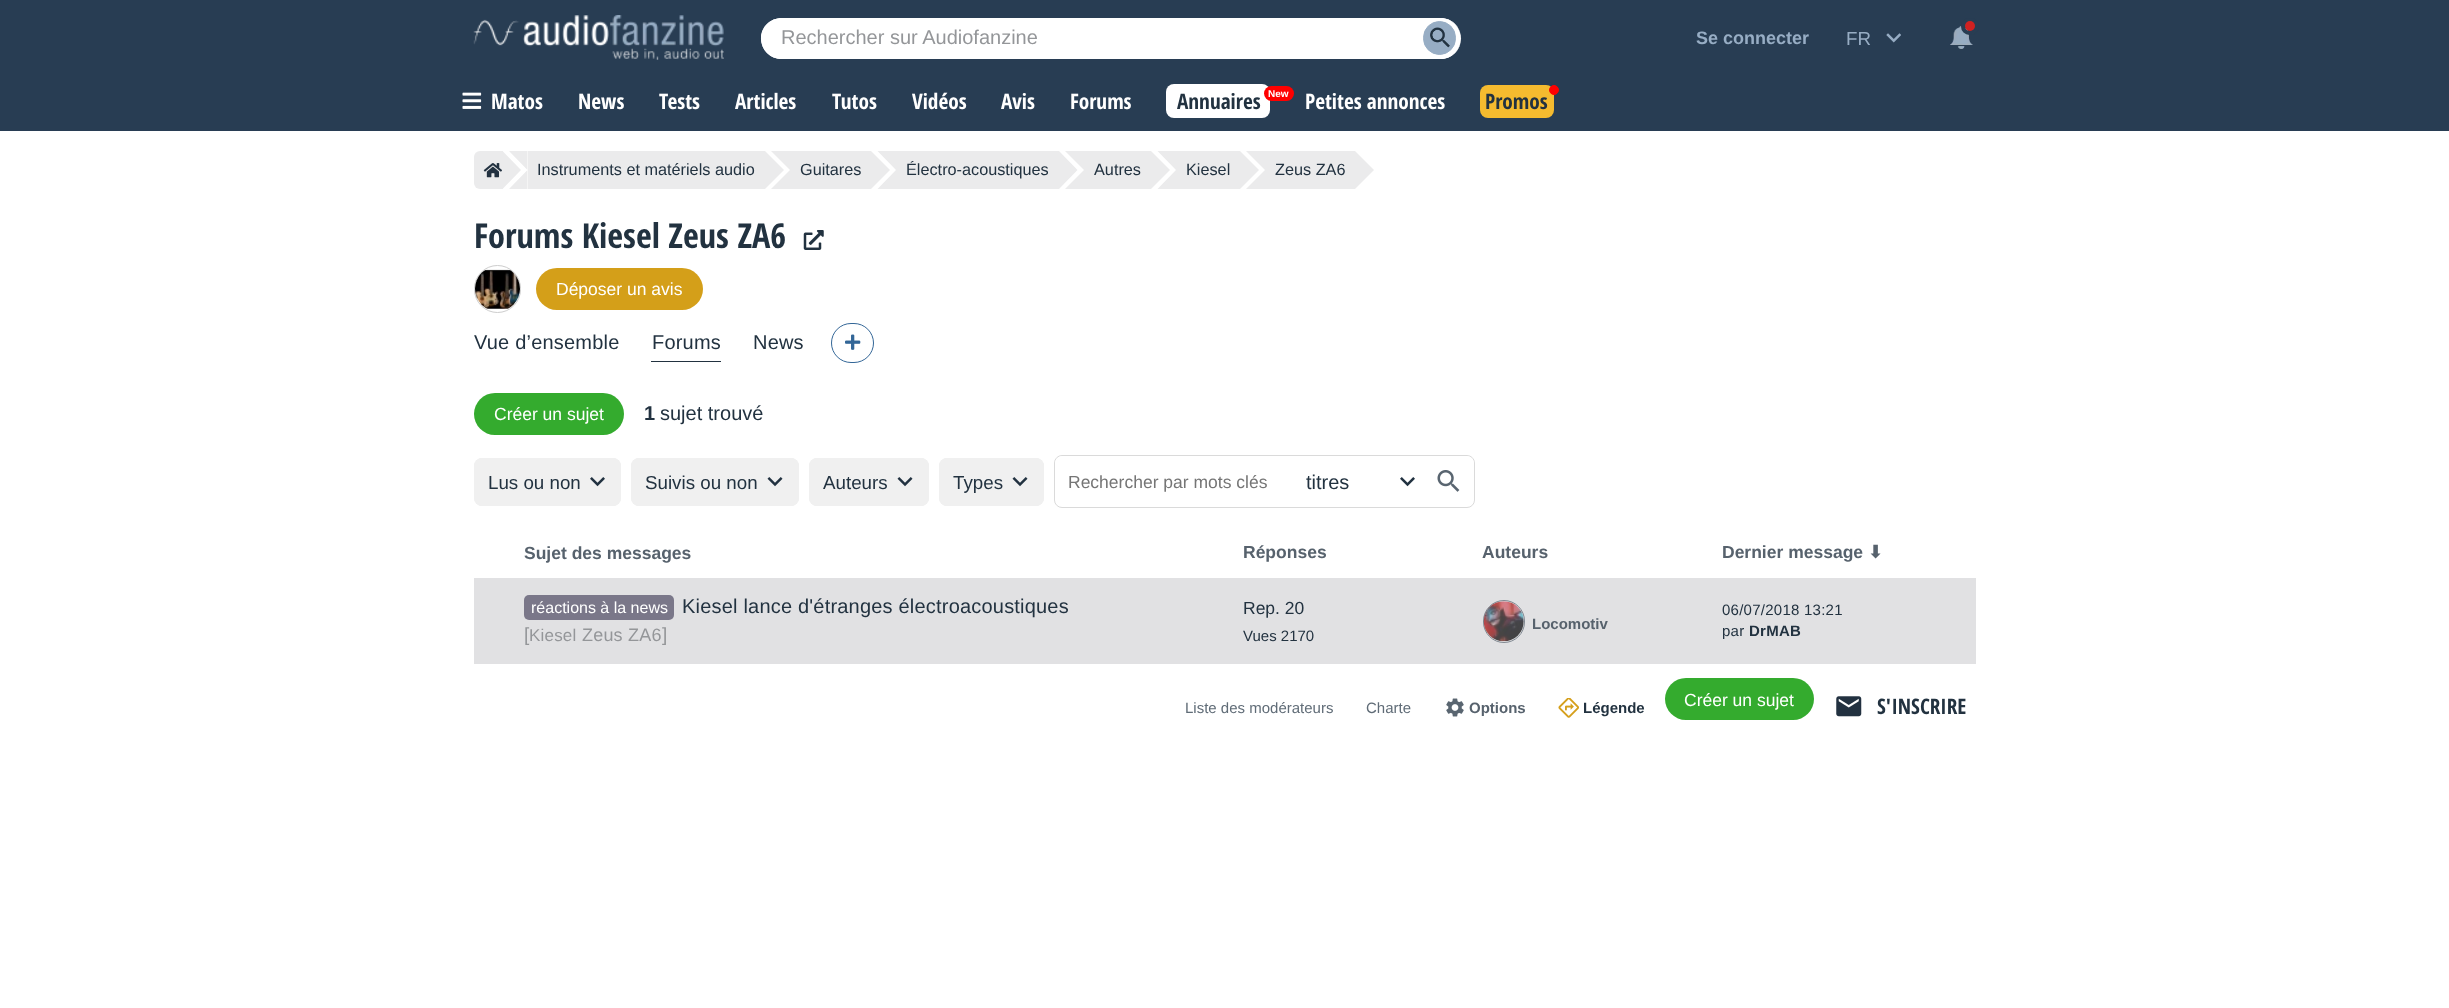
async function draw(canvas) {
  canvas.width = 2449;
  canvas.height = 1008;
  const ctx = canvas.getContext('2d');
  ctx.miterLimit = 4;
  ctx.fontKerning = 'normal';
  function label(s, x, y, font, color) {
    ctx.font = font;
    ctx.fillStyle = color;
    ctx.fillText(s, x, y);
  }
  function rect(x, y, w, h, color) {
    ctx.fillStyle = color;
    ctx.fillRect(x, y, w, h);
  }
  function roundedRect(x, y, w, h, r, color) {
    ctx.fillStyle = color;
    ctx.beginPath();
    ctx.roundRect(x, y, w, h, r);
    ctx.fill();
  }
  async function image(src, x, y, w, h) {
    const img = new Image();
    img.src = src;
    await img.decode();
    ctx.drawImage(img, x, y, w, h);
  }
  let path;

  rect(0, 0, 2449, 1008, '#fff');
  rect(0, 0, 2449, 131, '#283d53');
  await image('assets/img1.png', 473, 15, 251, 45);
  roundedRect(761, 18, 700, 41, 20.5, '#fff');
  path = new Path2D('M782 18H1441C1452 18 1461 27 1461 38C1461 50 1452 59 1441 59H782C770 59 761 50 761 38C761 27 770 18 782 18ZM782 19H1441C1452 19 1461 27 1461 38C1461 49 1452 58 1441 58H782C771 58 762 49 762 38C762 27 771 19 782 19Z');
  ctx.fill(path, 'evenodd');
  label('Rechercher sur Audiofanzine', 781, 44, '20px Liberation Sans', '#949699');
  ctx.fillStyle = '#97adc4';
  ctx.beginPath();
  ctx.roundRect(1423.5, 21.5, 32, 33, 16);
  ctx.fill();
  ctx.strokeStyle = '#97adc4';
  ctx.stroke();
  await image('assets/img2.png', 1430, 27, 20, 21);
  label('Se connecter', 1696, 44, 'bold 18px Liberation Sans', '#97adc4');
  await image('assets/img3.png', 1886, 33, 15, 10);
  label('FR', 1846, 45, '18.75px Liberation Sans', '#97adc4');
  await image('assets/img4.png', 1950, 26, 23, 23);
  ctx.beginPath();
  ctx.roundRect(1963, 20, 14, 13, 6.5);
  ctx.strokeStyle = '#283d53';
  ctx.lineWidth = 4;
  ctx.stroke();
  ctx.fillStyle = '#d02121';
  ctx.beginPath();
  ctx.arc(1970, 26, 5, 0, 2 * Math.PI);
  ctx.fill();
  await image('assets/img5.png', 462, 92, 20, 17);
  label('Matos', 491, 109, 'bold 21.25px Open Sans Condensed', '#fff');
  label('News', 578, 109, 'bold 21.25px Open Sans Condensed', '#fff');
  label('Tests', 659, 109, 'bold 21.25px Open Sans Condensed', '#fff');
  label('Articles', 735, 109, 'bold 21.25px Open Sans Condensed', '#fff');
  label('Tutos', 832, 109, 'bold 21.25px Open Sans Condensed', '#fff');
  label('Vidéos', 912, 109, 'bold 21.25px Open Sans Condensed', '#fff');
  label('Avis', 1001, 109, 'bold 21.25px Open Sans Condensed', '#fff');
  label('Forums', 1070, 109, 'bold 21.25px Open Sans Condensed', '#fff');
  roundedRect(1166, 84, 104, 34, 8, '#fff');
  label('Annuaires', 1177, 109, 'bold 21.25px Open Sans Condensed', '#223240');
  roundedRect(1264, 86, 30, 15, 7.5, '#f00');
  label('New', 1268, 97, 'bold 10px Liberation Sans', '#fff');
  label('Petites annonces', 1305, 109, 'bold 21.25px Open Sans Condensed', '#fff');
  roundedRect(1480, 85, 74, 33, 8, '#f5bb2f');
  ctx.fillStyle = '#f00';
  ctx.beginPath();
  ctx.arc(1554, 90, 4.5, 0, 2 * Math.PI);
  ctx.fill();
  ctx.strokeStyle = '#f00';
  ctx.lineWidth = 1;
  ctx.stroke();
  label('Promos', 1485, 109, 'bold 21.25px Open Sans Condensed', '#223240');
  ctx.fillStyle = '#ebebec';
  ctx.beginPath();
  ctx.roundRect(474, 151, 29, 38, [6, 0, 0, 6]);
  ctx.fill();
  await image('assets/img6.png', 483, 163, 19, 15);
  path = new Path2D('M502.5 189V151L521 170Z');
  ctx.fill(path);
  rect(528, 151, 237, 38, '#ebebec');
  path = new Path2D('M509 151H527.5V170ZM527.5 189H509L527.5 170Z');
  ctx.fill(path);
  label('Instruments et matériels audio', 537, 175, '16.25px Liberation Sans', '#223240');
  ctx.fillStyle = '#ebebec';
  path = new Path2D('M765 189V151L784 170Z');
  ctx.fill(path);
  rect(790, 151, 81, 38, '#ebebec');
  path = new Path2D('M771 151H790V170ZM790 189H771L790 170Z');
  ctx.fill(path);
  label('Guitares', 800, 175, '16.25px Liberation Sans', '#223240');
  ctx.fillStyle = '#ebebec';
  path = new Path2D('M871 189V151L890 170Z');
  ctx.fill(path);
  rect(896, 151, 163, 38, '#ebebec');
  path = new Path2D('M877.5 151H896V170ZM896 189H877.5L896 170Z');
  ctx.fill(path);
  label('Électro-acoustiques', 906, 175, '16.25px Liberation Sans', '#223240');
  ctx.fillStyle = '#ebebec';
  path = new Path2D('M1059 189V151L1077.5 170Z');
  ctx.fill(path);
  rect(1084, 151, 67, 38, '#ebebec');
  path = new Path2D('M1065 151H1084V170ZM1084 189H1065L1084 170Z');
  ctx.fill(path);
  label('Autres', 1094, 175, '16.25px Liberation Sans', '#223240');
  ctx.fillStyle = '#ebebec';
  path = new Path2D('M1151 189V151L1170 170Z');
  ctx.fill(path);
  rect(1176, 151, 64, 38, '#ebebec');
  path = new Path2D('M1157.5 151H1176V170ZM1176 189H1157.5L1176 170Z');
  ctx.fill(path);
  label('Kiesel', 1186, 175, '16.25px Liberation Sans', '#223240');
  ctx.fillStyle = '#ebebec';
  path = new Path2D('M1240 189V151L1259 170Z');
  ctx.fill(path);
  rect(1265, 151, 90, 38, '#ebebec');
  path = new Path2D('M1246 151H1265V170ZM1265 189H1246L1265 170Z');
  ctx.fill(path);
  label('Zeus ZA6', 1275, 175, '16.25px Liberation Sans', '#223240');
  ctx.fillStyle = '#ebebec';
  path = new Path2D('M1355 189V151L1374 170Z');
  ctx.fill(path);
  label('Forums Kiesel Zeus ZA6', 474, 248, 'bold 34.25px Open Sans Condensed', '#223240');
  await image('assets/img7.png', 803, 230, 21, 20);
  ctx.beginPath();
  ctx.roundRect(474.5, 265.5, 46, 47, 23);
  ctx.strokeStyle = '#cdcdcd';
  ctx.stroke();
  await image('assets/img8.png', 475, 269, 45, 40);
  roundedRect(536, 268, 167, 42, 21, '#d49f19');
  label('Déposer un avis', 556, 295, '17.5px Liberation Sans', '#fff');
  ctx.letterSpacing = '0.2px';
  label('Vue d’ensemble', 474, 349, '20px Liberation Sans', '#223240');
  rect(651, 361, 70, 1, '#223240');
  label('Forums', 652, 349, '20px Liberation Sans', '#223240');
  label('News', 753, 349, '20px Liberation Sans', '#223240');
  ctx.beginPath();
  ctx.roundRect(831.5, 323.5, 42, 39, 19.5);
  ctx.strokeStyle = '#336697';
  ctx.stroke();
  await image('assets/img9.png', 845, 334, 16, 16);
  roundedRect(474, 393, 150, 42, 21, '#34ab2e');
  ctx.letterSpacing = '0px';
  label('Créer un sujet', 494, 420, '17.5px Liberation Sans', '#fff');
  label('1', 644, 420, 'bold 20px Liberation Sans', '#223240');
  label('sujet trouvé', 660, 420, '20px Liberation Sans', '#223240');
  roundedRect(474, 458, 147, 48, 8, '#f0f0f0');
  await image('assets/img10.png', 590, 477, 15, 10);
  ctx.beginPath();
  ctx.roundRect(474.5, 458.5, 146, 47, 7.5);
  ctx.strokeStyle = '#f0f0f0';
  ctx.stroke();
  label('Lus ou non', 488, 489, '18.75px Liberation Sans', '#223240');
  roundedRect(631, 458, 168, 48, 8, '#f0f0f0');
  await image('assets/img11.png', 767, 477, 16, 10);
  ctx.beginPath();
  ctx.roundRect(631.5, 458.5, 167, 47, 7.5);
  ctx.stroke();
  label('Suivis ou non', 645, 489, '18.75px Liberation Sans', '#223240');
  roundedRect(809, 458, 120, 48, 8, '#f0f0f0');
  await image('assets/img11.png', 897, 477, 16, 10);
  ctx.beginPath();
  ctx.roundRect(809.5, 458.5, 119, 47, 7.5);
  ctx.stroke();
  label('Auteurs', 823, 489, '18.75px Liberation Sans', '#223240');
  roundedRect(939, 458, 105, 48, 8, '#f0f0f0');
  await image('assets/img11.png', 1012, 477, 16, 10);
  ctx.beginPath();
  ctx.roundRect(939.5, 458.5, 104, 47, 7.5);
  ctx.stroke();
  label('Types', 953, 489, '18.75px Liberation Sans', '#223240');
  ctx.beginPath();
  ctx.roundRect(1054.5, 455.5, 420, 52, 7.5);
  ctx.strokeStyle = '#dadada';
  ctx.stroke();
  ctx.fillStyle = '#fff';
  ctx.beginPath();
  ctx.roundRect(1055, 456, 238, 50, [8, 0, 0, 8]);
  ctx.fill();
  label('Rechercher par mots clés', 1068, 488, '17.5px Liberation Sans', '#757575');
  await image('assets/img12.png', 1400, 477, 15, 10);
  label('titres', 1306, 489, '20px Liberation Sans', '#223240');
  ctx.fillStyle = '#fff';
  ctx.beginPath();
  ctx.roundRect(1424, 456, 50, 50, [0, 8, 8, 0]);
  ctx.fill();
  await image('assets/img13.png', 1437, 470, 23, 22);
  label('Sujet des messages', 524, 559, 'bold 17.5px Liberation Sans', '#57626d');
  label('Réponses', 1243, 558, 'bold 17.5px Liberation Sans', '#57626d');
  label('Auteurs', 1482, 558, 'bold 17.5px Liberation Sans', '#57626d');
  label('Dernier message', 1722, 558, 'bold 17.5px Liberation Sans', '#57626d');
  label('⬇', 1868, 558, 'bold 17.5px DejaVu Sans', '#57626d');
  rect(474, 578, 1502, 86, '#e1e1e3');
  roundedRect(524, 595, 150, 25, 5, '#7a7789');
  label('réactions à la news', 531, 613, '16px Liberation Sans', '#fff');
  ctx.letterSpacing = '0.2px';
  label('Kiesel lance d\'étranges électroacoustiques', 682, 613, '20px Liberation Sans', '#223240');
  ctx.letterSpacing = '0px';
  label('[', 524, 641, '19px Liberation Sans', '#949699');
  ctx.letterSpacing = '0.2px';
  label('Kiesel', 529, 641, '17px Liberation Sans', '#949699');
  label('Zeus ZA6', 582, 641, '18px Liberation Sans', '#949699');
  ctx.letterSpacing = '0px';
  label(']', 662, 641, '19px Liberation Sans', '#949699');
  label('Rep. 20', 1243, 614, '17.5px Liberation Sans', '#223240');
  label('Vues 2170', 1243, 641, '15px Liberation Sans', '#223240');
  ctx.beginPath();
  ctx.roundRect(1483.5, 600.5, 41, 42, 20.5);
  ctx.strokeStyle = '#818992';
  ctx.stroke();
  await image('assets/img14.png', 1483, 601, 41, 41);
  label('Locomotiv', 1532, 629, 'bold 15px Liberation Sans', '#57626d');
  ctx.letterSpacing = '0.25px';
  label('06/07/2018 13:21', 1722, 615, '15px Liberation Sans', '#223240');
  label('par', 1722, 636, '15px Liberation Sans', '#223240');
  label('DrMAB', 1749, 636, 'bold 15px Liberation Sans', '#223240');
  ctx.letterSpacing = '0px';
  label('Liste des modérateurs', 1185, 713, '15px Liberation Sans', '#606c77');
  label('Charte', 1366, 713, '15px Liberation Sans', '#606c77');
  await image('assets/img15.png', 1446, 698, 18, 19);
  label('Options', 1469, 713, 'bold 15px Liberation Sans', '#57626d');
  await image('assets/img16.png', 1558, 698, 21, 20);
  label('Légende', 1583, 713, 'bold 15px Liberation Sans', '#223240');
  roundedRect(1665, 678, 149, 42, 21, '#34ab2e');
  label('Créer un sujet', 1684, 706, '17.5px Liberation Sans', '#fff');
  await image('assets/img17.png', 1836, 696, 26, 21);
  label('S\'INSCRIRE', 1877, 714, 'bold 21.25px Open Sans Condensed', '#223240');
}

draw(document.querySelector('canvas'));
